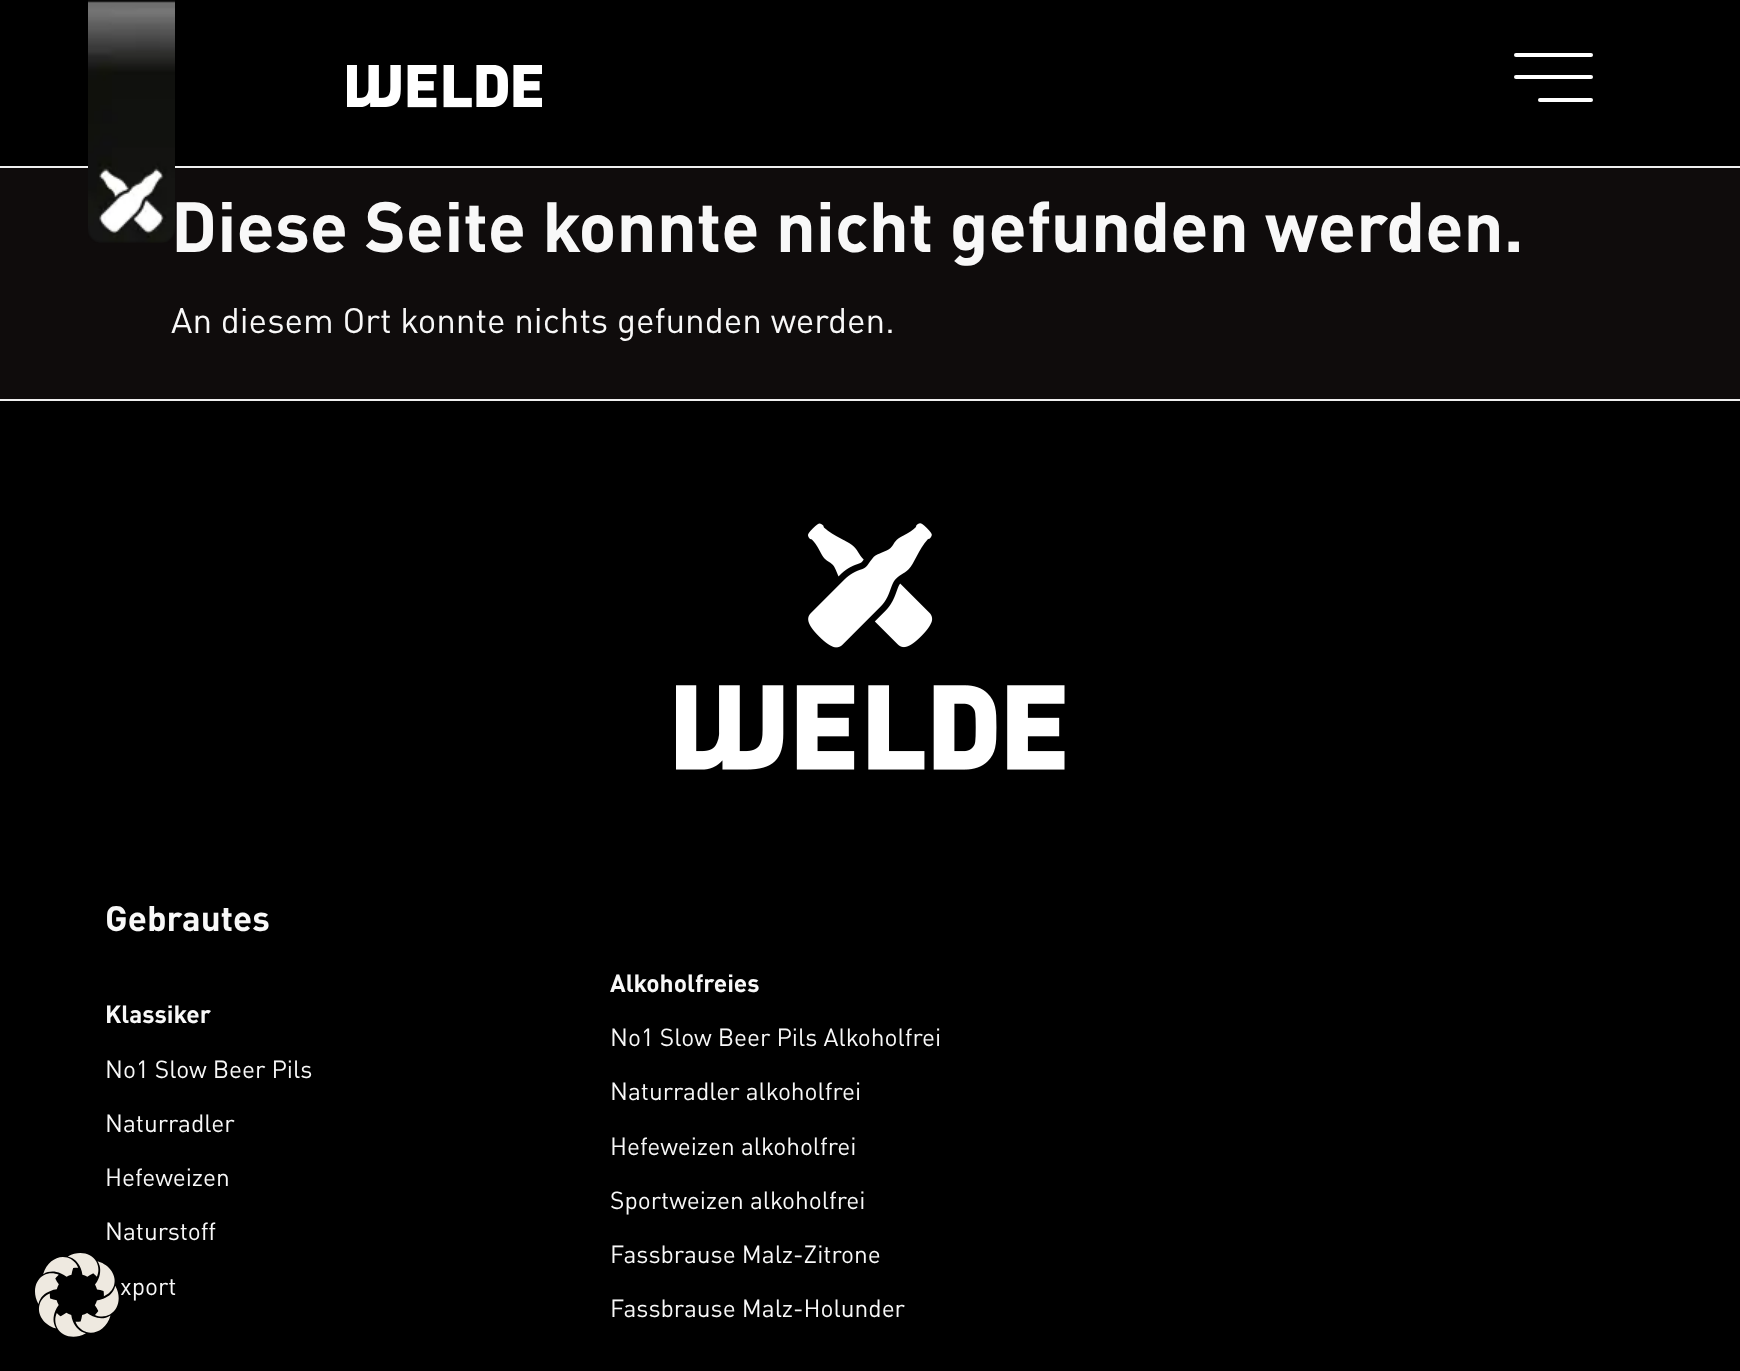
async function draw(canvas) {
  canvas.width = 1740;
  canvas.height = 1371;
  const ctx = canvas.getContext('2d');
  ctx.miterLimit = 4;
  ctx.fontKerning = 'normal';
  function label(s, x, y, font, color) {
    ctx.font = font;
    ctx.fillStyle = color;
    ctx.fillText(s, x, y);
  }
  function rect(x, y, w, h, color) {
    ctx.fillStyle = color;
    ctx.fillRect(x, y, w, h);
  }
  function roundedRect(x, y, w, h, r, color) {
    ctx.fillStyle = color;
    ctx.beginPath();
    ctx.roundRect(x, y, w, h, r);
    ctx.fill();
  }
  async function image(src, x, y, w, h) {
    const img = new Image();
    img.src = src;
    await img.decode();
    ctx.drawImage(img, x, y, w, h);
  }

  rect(0, 0, 1740, 1371, '#0f0c0c');
  rect(0, 0, 1740, 166, '#000');
  rect(0, 166, 1740, 2, '#efefef');
  await image('assets/img1.png', 88, 0, 87, 243);
  await image('assets/img2.png', 347, 65, 195, 43);
  roundedRect(1514, 53, 79, 4, 2, '#fff');
  roundedRect(1514, 75, 79, 4, 2, '#fff');
  roundedRect(1538, 98, 55, 4, 2, '#fff');
  label('Diese Seite konnte nicht gefunden werden.', 171, 252, 'bold 70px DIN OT', '#f8f8f8');
  label('An diesem Ort konnte nichts gefunden werden.', 171, 333, '35px DIN OT', '#f8f8f8');
  rect(0, 401, 1740, 970, '#000');
  label('xport', 120, 1295, '24.5px DIN OT', '#f8f8f8');
  await image('assets/img3.png', 35, 1253, 90, 84);
  rect(0, 399, 1740, 2, '#efefef');
  await image('assets/img4.png', 676, 523, 389, 247);
  label('Gebrautes', 105, 931, 'bold 35px DIN OT', '#f8f8f8');
  label('Klassiker', 105, 1023, 'bold 24.5px DIN OT', '#f8f8f8');
  label('No1 Slow Beer Pils', 105, 1078, '24.5px DIN OT', '#f8f8f8');
  label('Naturradler', 105, 1132, '24.5px DIN OT', '#f8f8f8');
  label('Hefeweizen', 105, 1186, '24.5px DIN OT', '#f8f8f8');
  label('Naturstoff', 105, 1240, '24.5px DIN OT', '#f8f8f8');
  label('Alkoholfreies', 610, 992, 'bold 24.5px DIN OT', '#f8f8f8');
  label('No1 Slow Beer Pils Alkoholfrei', 610, 1046, '24.5px DIN OT', '#f8f8f8');
  label('Naturradler alkoholfrei', 610, 1100, '24.5px DIN OT', '#f8f8f8');
  label('Hefeweizen alkoholfrei', 610, 1155, '24.5px DIN OT', '#f8f8f8');
  label('Sportweizen alkoholfrei', 610, 1209, '24.5px DIN OT', '#f8f8f8');
  label('Fassbrause Malz-Zitrone', 610, 1263, '24.5px DIN OT', '#f8f8f8');
  label('Fassbrause Malz-Holunder', 610, 1317, '24.5px DIN OT', '#f8f8f8');
}

draw(document.querySelector('canvas'));
